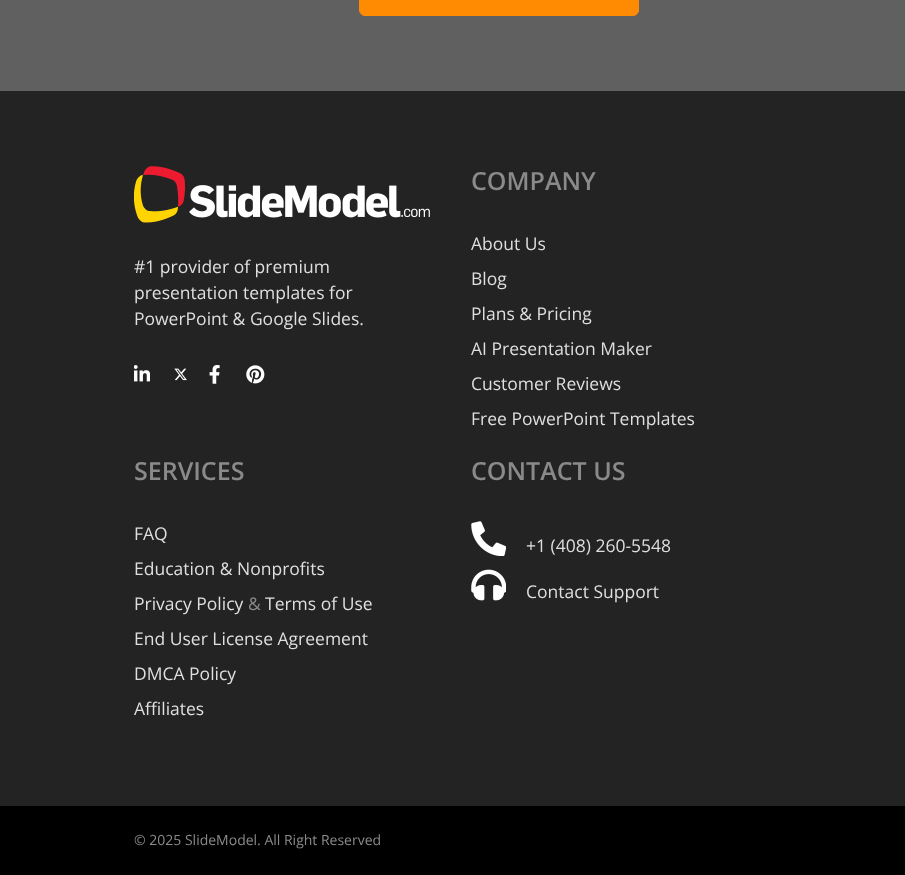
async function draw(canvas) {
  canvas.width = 905;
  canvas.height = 875;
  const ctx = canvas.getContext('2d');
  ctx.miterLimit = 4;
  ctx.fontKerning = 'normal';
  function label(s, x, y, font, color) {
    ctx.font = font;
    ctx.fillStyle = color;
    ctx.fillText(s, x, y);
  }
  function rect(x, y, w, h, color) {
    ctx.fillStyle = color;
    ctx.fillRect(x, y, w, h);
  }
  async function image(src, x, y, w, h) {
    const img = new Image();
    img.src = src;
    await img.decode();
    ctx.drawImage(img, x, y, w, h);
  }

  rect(0, 0, 905, 875, '#606060');
  ctx.fillStyle = '#ff8b03';
  ctx.beginPath();
  ctx.roundRect(359.5, -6.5, 279, 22, 5.5);
  ctx.fill();
  ctx.strokeStyle = '#ff8b03';
  ctx.stroke();
  rect(0, 91, 905, 715, '#232324');
  await image('assets/img1.png', 134, 166, 296, 57);
  label('#1 provider of premium', 134, 273, '17.5px Open Sans', '#dfdfdf');
  label('presentation templates for', 134, 299, '17.5px Open Sans', '#dfdfdf');
  label('PowerPoint & Google Slides.', 134, 325, '17.5px Open Sans', '#dfdfdf');
  await image('assets/img2.png', 134, 365, 16, 17);
  await image('assets/img3.png', 174, 368, 13, 13);
  await image('assets/img4.png', 209, 365, 11, 19);
  await image('assets/img5.png', 246, 365, 19, 19);
  label('COMPANY', 471, 190, '600 25px Open Sans', '#8a8a8a');
  label('About Us', 471, 250, '17.5px Open Sans', '#dfdfdf');
  label('Blog', 471, 285, '17.5px Open Sans', '#dfdfdf');
  label('Plans & Pricing', 471, 320, '17.5px Open Sans', '#dfdfdf');
  label('AI Presentation Maker', 471, 355, '17.5px Open Sans', '#dfdfdf');
  label('Customer Reviews', 471, 390, '17.5px Open Sans', '#dfdfdf');
  label('Free PowerPoint Templates', 471, 425, '17.5px Open Sans', '#dfdfdf');
  label('SERVICES', 134, 480, '600 25px Open Sans', '#8a8a8a');
  label('FAQ', 134, 540, '17.5px Open Sans', '#dfdfdf');
  label('Education & Nonprofits', 134, 575, '17.5px Open Sans', '#dfdfdf');
  label('Privacy Policy', 134, 610, '17.5px Open Sans', '#dfdfdf');
  label('&', 248, 610, '17.5px Open Sans', '#8a8a8a');
  label('Terms of Use', 265, 610, '17.5px Open Sans', '#dfdfdf');
  label('End User License Agreement', 134, 645, '17.5px Open Sans', '#dfdfdf');
  label('DMCA Policy', 134, 680, '17.5px Open Sans', '#dfdfdf');
  label('Affiliates', 134, 715, '17.5px Open Sans', '#dfdfdf');
  label('CONTACT US', 471, 480, '600 25px Open Sans', '#8a8a8a');
  await image('assets/img6.png', 471, 521, 35, 35);
  label('+1 (408) 260-5548', 526, 552, '17.5px Open Sans', '#dfdfdf');
  await image('assets/img7.png', 471, 569, 35, 32);
  label('Contact Support', 526, 598, '17.5px Open Sans', '#dfdfdf');
  rect(0, 806, 905, 69, '#000');
  label('© 2025 SlideModel. All Right Reserved', 134, 845, '14px Open Sans', '#8a8a8a');
}

draw(document.querySelector('canvas'));
